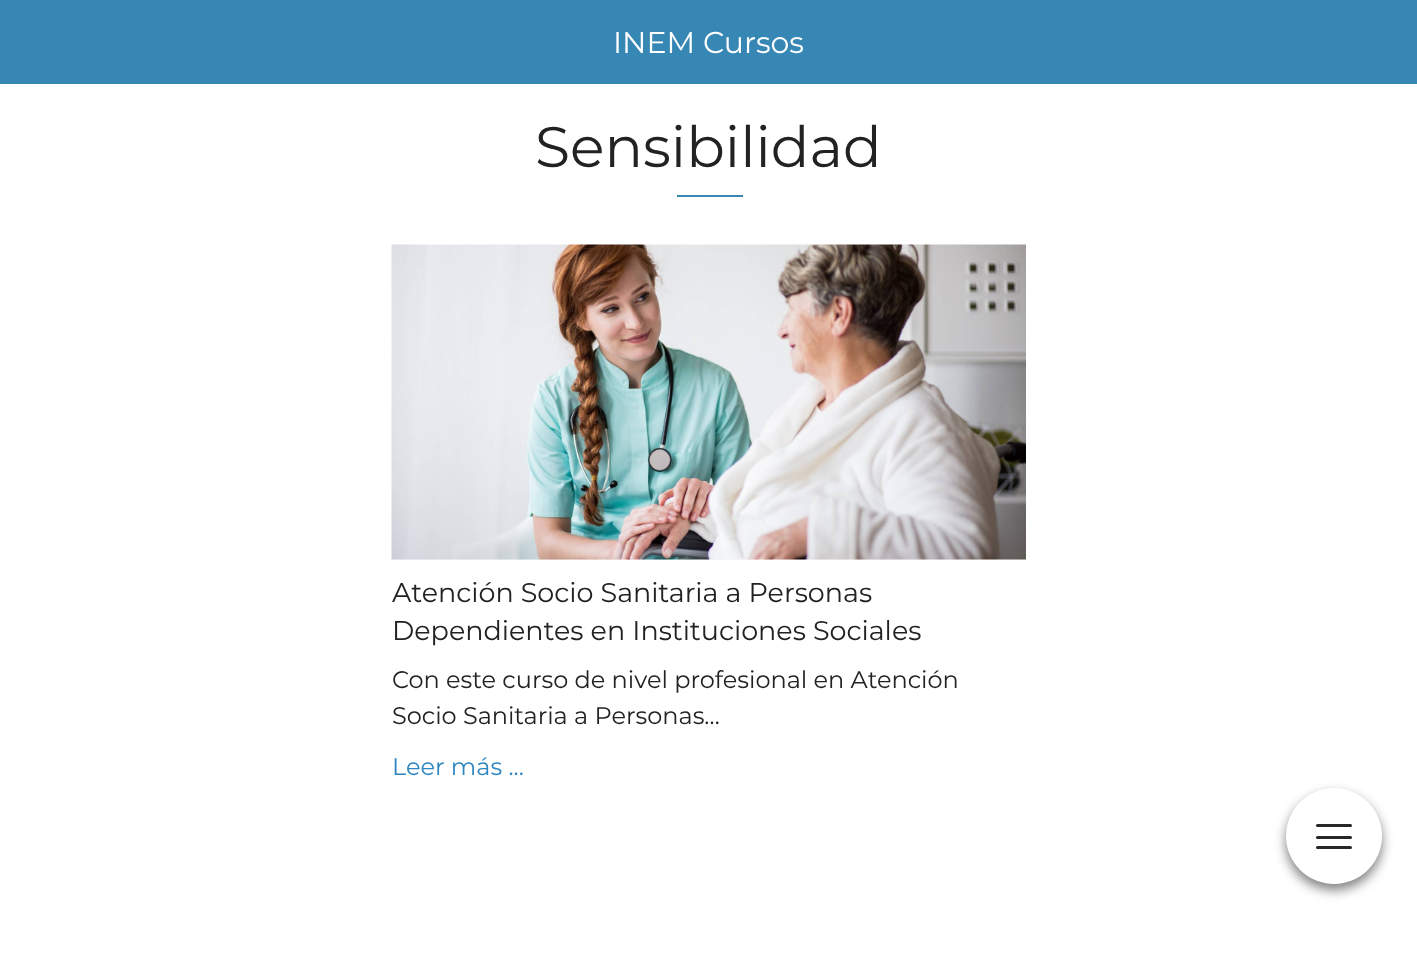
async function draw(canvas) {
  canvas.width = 1417;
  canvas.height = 979;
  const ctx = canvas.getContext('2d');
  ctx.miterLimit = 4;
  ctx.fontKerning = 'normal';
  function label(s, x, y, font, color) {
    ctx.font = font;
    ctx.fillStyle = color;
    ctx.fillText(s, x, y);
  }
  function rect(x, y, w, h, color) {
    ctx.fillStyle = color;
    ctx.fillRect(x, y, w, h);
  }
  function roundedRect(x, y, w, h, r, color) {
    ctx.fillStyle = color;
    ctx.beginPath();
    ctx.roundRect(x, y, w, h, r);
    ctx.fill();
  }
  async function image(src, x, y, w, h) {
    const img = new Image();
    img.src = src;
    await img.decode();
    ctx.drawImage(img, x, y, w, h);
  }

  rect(0, 0, 1417, 979, '#fff');
  rect(0, 0, 1417, 84, '#3787b5');
  label('INEM Cursos', 613, 53, '30px Montserrat', '#fff');
  ctx.fillStyle = '#00000080';
  ctx.filter = 'blur(6px)';
  ctx.beginPath();
  ctx.roundRect(1286, 794, 96, 96, 48);
  ctx.fill();
  ctx.filter = 'none';
  ctx.fillStyle = '#fff';
  ctx.beginPath();
  ctx.arc(1334, 836, 48, 0, 2 * Math.PI);
  ctx.fill();
  roundedRect(1316, 824, 36, 3, 1.5, '#282828');
  roundedRect(1316, 836, 36, 3, 1.5, '#282828');
  roundedRect(1316, 846, 36, 3, 1.5, '#282828');
  label('Sensibilidad', 535, 167, '57px Montserrat', '#222');
  rect(677, 195, 66, 2, '#3787b5');
  rect(392, 559, 634, 1, '#f7f7f7');
  await image('assets/img1.png', 391, 244, 635, 316);
  label('Atención Socio Sanitaria a Personas', 392, 602, '27px Montserrat', '#222');
  label('Dependientes en Instituciones Sociales', 392, 640, '27px Montserrat', '#222');
  label('Con este curso de nivel profesional en Atención', 392, 688, '24px Montserrat', '#222');
  label('Socio Sanitaria a Personas…', 392, 724, '24px Montserrat', '#222');
  label('Leer más ...', 392, 775, '24px Montserrat', '#2e86c1');
}

draw(document.querySelector('canvas'));
